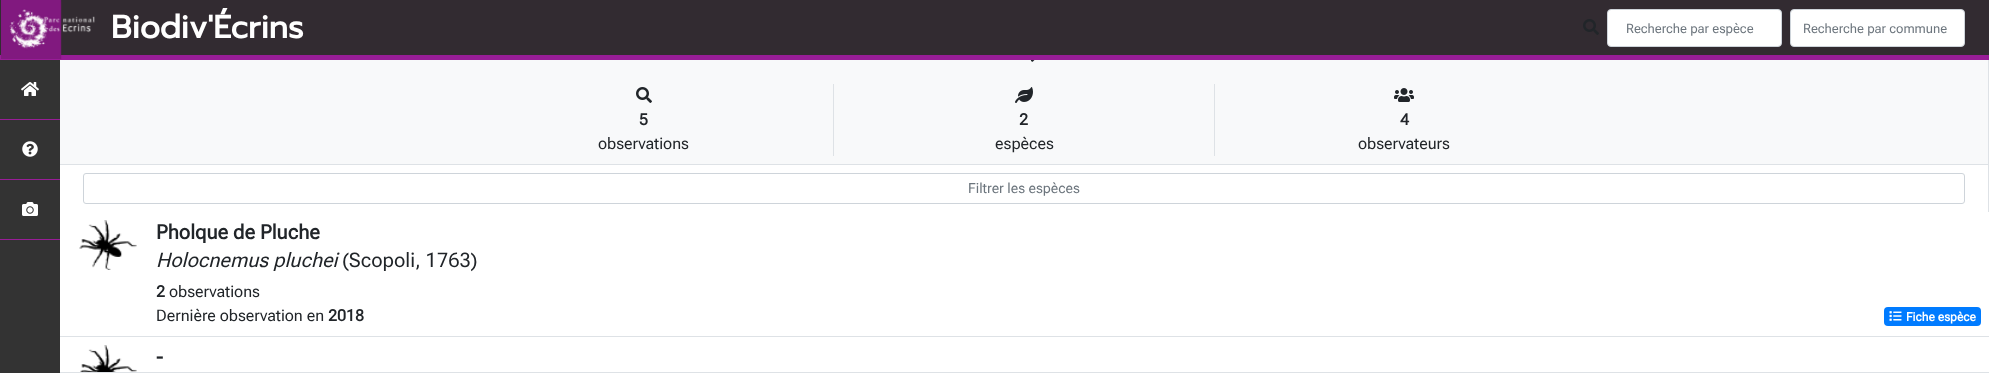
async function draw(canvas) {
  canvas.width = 1989;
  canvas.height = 373;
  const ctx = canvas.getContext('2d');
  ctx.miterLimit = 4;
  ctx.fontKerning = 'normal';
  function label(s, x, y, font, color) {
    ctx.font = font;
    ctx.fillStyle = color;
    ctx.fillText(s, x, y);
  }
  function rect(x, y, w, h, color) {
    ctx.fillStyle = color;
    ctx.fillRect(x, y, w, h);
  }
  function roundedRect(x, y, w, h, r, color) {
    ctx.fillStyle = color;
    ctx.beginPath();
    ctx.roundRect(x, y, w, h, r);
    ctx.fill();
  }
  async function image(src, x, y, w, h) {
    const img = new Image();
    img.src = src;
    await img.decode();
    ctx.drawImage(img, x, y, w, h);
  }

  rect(0, 0, 1989, 373, '#dee2e6');
  rect(0, 0, 1989, 55, '#322b31');
  rect(0, 55, 1989, 5, '#981d97');
  await image('assets/img1.png', 1, 0, 94, 59);
  label('Biodiv\'Écrins', 111, 38, 'bold 32px Prompt', '#fff');
  await image('assets/img2.png', 1583, 19, 16, 16);
  ctx.beginPath();
  ctx.roundRect(1607.5, 9.5, 174, 37, 3.5);
  ctx.fill();
  ctx.strokeStyle = '#ced4da';
  ctx.stroke();
  label('Recherche par espèce', 1626, 33, '13px Roboto Flex', '#6c757d');
  ctx.fillStyle = '#fff';
  ctx.beginPath();
  ctx.roundRect(1790.5, 9.5, 174, 37, 3.5);
  ctx.fill();
  ctx.stroke();
  label('Recherche par commune', 1803, 33, '13px Roboto Flex', '#6c757d');
  rect(0, 60, 60, 313, '#333');
  rect(0, 119, 60, 1, '#981d97');
  await image('assets/img3.png', 21, 82, 18, 14);
  rect(0, 179, 60, 1, '#981d97');
  await image('assets/img4.png', 22, 141, 16, 16);
  rect(0, 239, 60, 1, '#981d97');
  await image('assets/img5.png', 22, 202, 16, 14);
  rect(60, 60, 1928, 104, '#f8f9fa');
  await image('assets/img6.png', 1030, 60, 5, 2);
  rect(833, 84, 1, 72, '#dee2e6');
  await image('assets/img7.png', 636, 87, 16, 16);
  label('5', 639, 125, 'bold 16px Roboto Flex', '#212529');
  label('observations', 598, 149, '16px Roboto Flex', '#212529');
  rect(1214, 84, 1, 72, '#dee2e6');
  await image('assets/img8.png', 1015, 87, 18, 16);
  label('2', 1019, 125, 'bold 16px Roboto Flex', '#212529');
  label('espèces', 995, 149, '16px Roboto Flex', '#212529');
  await image('assets/img9.png', 1394, 88, 20, 14);
  label('4', 1400, 125, 'bold 16px Roboto Flex', '#212529');
  label('observateurs', 1358, 149, '16px Roboto Flex', '#212529');
  rect(60, 165, 1928, 47, '#fff');
  ctx.beginPath();
  ctx.roundRect(83.5, 173.5, 1881, 30, 2.5);
  ctx.stroke();
  label('Filtrer les espèces', 968, 193, '14px Roboto Flex', '#6c757d');
  rect(60, 212, 1929, 160, '#fff');
  rect(60, 336, 1929, 1, '#dee2e6');
  await image('assets/img10.png', 79, 220, 58, 50);
  label('Pholque de Pluche', 156, 239, 'bold 20px Roboto Flex', '#212529');
  label('Holocnemus pluchei', 156, 267, 'italic 20px Roboto Flex', '#212529');
  label('(Scopoli, 1763)', 342, 267, '20px Roboto Flex', '#212529');
  label('2', 156, 297, 'bold 16px Roboto Flex', '#212529');
  label('observations', 169, 297, '16px Roboto Flex', '#212529');
  label('Dernière observation en', 156, 321, '16px Roboto Flex', '#212529');
  label('2018', 328, 321, 'bold 16px Roboto Flex', '#212529');
  roundedRect(1884, 307, 97, 19, 4, '#007bff');
  await image('assets/img11.png', 1889, 311, 13, 10);
  label('Fiche espèce', 1906, 321, 'bold 12px Roboto Flex', '#fff');
  await image('assets/img12.png', 80, 345, 57, 27);
  label('-', 156, 364, 'bold 20px Roboto Flex', '#212529');
}

draw(document.querySelector('canvas'));
